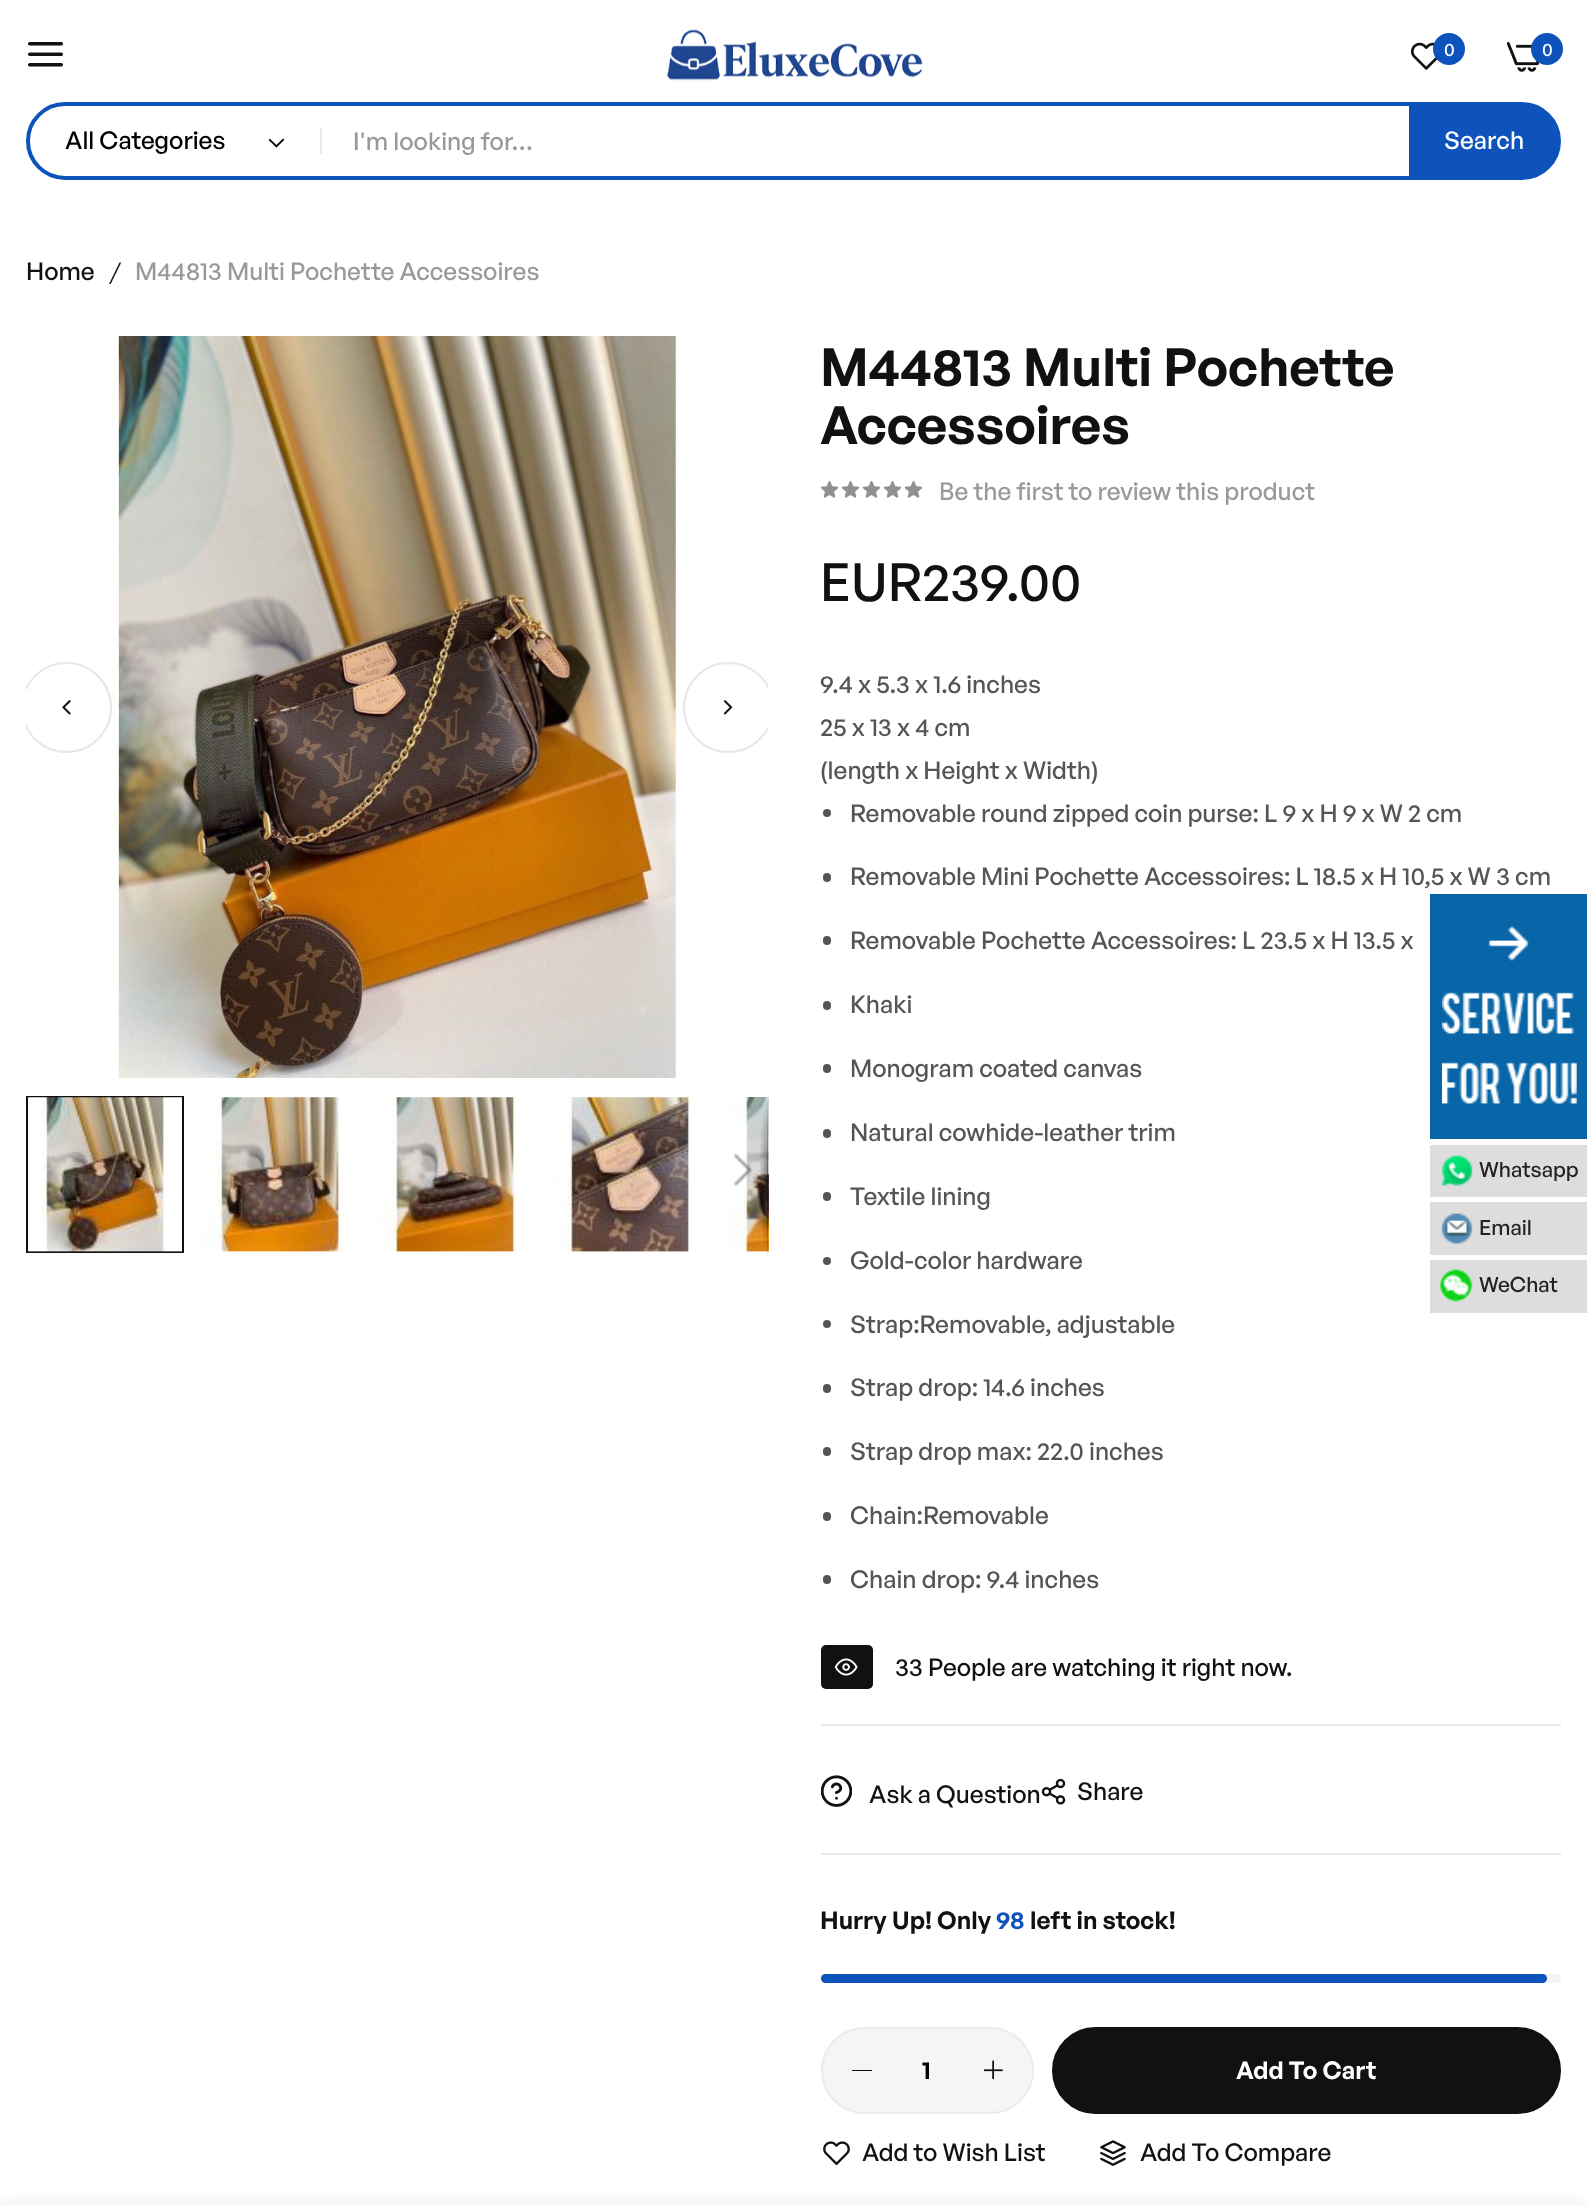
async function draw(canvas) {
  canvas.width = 1587;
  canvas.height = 2205;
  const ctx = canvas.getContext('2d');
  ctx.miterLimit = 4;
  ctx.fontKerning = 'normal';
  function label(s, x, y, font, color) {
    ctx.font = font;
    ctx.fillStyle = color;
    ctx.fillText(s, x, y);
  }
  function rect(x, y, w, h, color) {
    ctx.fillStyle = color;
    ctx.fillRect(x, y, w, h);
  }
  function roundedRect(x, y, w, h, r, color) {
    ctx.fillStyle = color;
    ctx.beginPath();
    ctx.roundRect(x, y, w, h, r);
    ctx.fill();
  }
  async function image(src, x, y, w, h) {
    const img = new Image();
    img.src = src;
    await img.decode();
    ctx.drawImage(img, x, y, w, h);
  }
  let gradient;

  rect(0, 0, 1587, 2205, '#fff');
  await image('assets/img1.png', 28, 42, 35, 25);
  await image('assets/img2.png', 667, 29, 256, 52);
  await image('assets/img3.png', 1410, 42, 28, 28);
  ctx.fillStyle = '#0d53bb';
  ctx.beginPath();
  ctx.arc(1449, 49, 16, 0, 2 * Math.PI);
  ctx.fill();
  label('0', 1444, 56, '500 18px General Sans', '#fff');
  await image('assets/img4.png', 1507, 42, 33, 30);
  ctx.fillStyle = '#0d53bb';
  ctx.beginPath();
  ctx.arc(1547, 49, 16, 0, 2 * Math.PI);
  ctx.fill();
  label('0', 1542, 56, '500 18px General Sans', '#fff');
  ctx.beginPath();
  ctx.roundRect(28, 104, 1531, 74, 37);
  ctx.strokeStyle = '#0d53bb';
  ctx.lineWidth = 4;
  ctx.stroke();
  label('All Categories', 65, 149, '500 24.5px General Sans', '#000');
  await image('assets/img5.png', 268, 138, 17, 10);
  rect(320, 128, 2, 26, '#ebebeb');
  label('I\'m looking for…', 353, 150, '500 24.5px General Sans', '#999');
  ctx.fillStyle = '#0d53bb';
  ctx.beginPath();
  ctx.roundRect(1409, 105, 150, 72, [0, 36, 36, 0]);
  ctx.fill();
  label('Search', 1444, 149, '500 24.5px General Sans', '#fff');
  label('Home', 26, 280, '500 24.5px General Sans', '#111');
  ctx.save();
  ctx.beginPath();
  ctx.rect(109, 259, 12, 25);
  ctx.clip();
  label('/', 109, 280, '24.5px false', '#111');
  ctx.restore();
  label('M44813 Multi Pochette Accessoires', 135, 280, '500 24.5px General Sans', '#999');
  await image('assets/img7.png', 110, 336, 568, 742);
  ctx.save();
  ctx.beginPath();
  ctx.rect(26, 336, 742, 742);
  ctx.clip();
  ctx.beginPath();
  ctx.arc(66.5, 707.5, 44.5, 0, 2 * Math.PI);
  ctx.strokeStyle = '#e5e8ec';
  ctx.lineWidth = 2;
  ctx.stroke();
  ctx.restore();
  await image('assets/img6.png', 62, 700, 9, 15);
  ctx.save();
  ctx.beginPath();
  ctx.rect(26, 336, 742, 742);
  ctx.clip();
  ctx.beginPath();
  ctx.arc(728.5, 707.5, 44.5, 0, 2 * Math.PI);
  ctx.strokeStyle = '#e5e8ec';
  ctx.lineWidth = 2;
  ctx.stroke();
  ctx.restore();
  await image('assets/img8.png', 723, 700, 10, 15);
  ctx.strokeStyle = '#111';
  ctx.lineWidth = 2;
  ctx.strokeRect(27, 1097, 156, 155);
  await image('assets/img9.png', 28, 1097, 154, 155);
  await image('assets/img10.png', 203, 1097, 154, 155);
  await image('assets/img11.png', 378, 1097, 154, 155);
  await image('assets/img12.png', 553, 1097, 154, 155);
  await image('assets/img13.png', 728, 1097, 41, 155);
  await image('assets/img14.png', 46, 1164, 15, 29);
  await image('assets/img15.png', 733, 1153, 20, 34);
  gradient = ctx.createRadialGradient(768, 129.29, 0, 768, 129.29, 9);
  gradient.addColorStop(0, '#00000066');
  gradient.addColorStop(1, '#00000000');
  ctx.fillStyle = gradient;
  ctx.beginPath();
  ctx.rect(760, 1096, 8, 164);
  ctx.save();
  ctx.clip();
  ctx.scale(1, 82 / 9);
  ctx.fillRect(0, 0, 1587, 243);
  ctx.restore();
  gradient = ctx.createLinearGradient(767, 1096, 767, 1260);
  gradient.addColorStop(0, '#00000000');
  gradient.addColorStop(0.25, '#00000033');
  gradient.addColorStop(0.75, '#0000004d');
  gradient.addColorStop(1, '#00000000');
  ctx.fillStyle = gradient;
  ctx.fillRect(767, 1096, 1, 164);
  label('M44813 Multi Pochette', 820, 386, '600 52.5px General Sans', '#111');
  label('Accessoires', 820, 444, '600 52.5px General Sans', '#111');
  await image('assets/img16.png', 820, 481, 103, 17);
  label('Be the first to review this product', 939, 500, '500 24.5px General Sans', '#999');
  label('EUR239.00', 820, 601, '500 52.5px General Sans', '#111');
  label('9.4 x 5.3 x 1.6 inches', 820, 693, '500 24.5px General Sans', '#555');
  label('25 x 13 x 4 cm', 820, 736, '500 24.5px General Sans', '#555');
  label('(length x Height x Width)', 820, 779, '500 24.5px General Sans', '#555');
  ctx.beginPath();
  ctx.arc(827, 813, 4, 0, 2 * Math.PI);
  ctx.fill();
  label('Removable round zipped coin purse: L 9 x H 9 x W 2 cm', 850, 822, '500 24.5px General Sans', '#555');
  roundedRect(823, 873, 8, 9, 4, '#555');
  label('Removable Mini Pochette Accessoires: L 18.5 x H 10,5 x W 3 cm', 850, 885, '500 24.5px General Sans', '#555');
  roundedRect(823, 936, 8, 9, 4, '#555');
  label('Removable Pochette Accessoires: L 23.5 x H 13.5 x', 850, 949, '500 24.5px General Sans', '#555');
  roundedRect(823, 1001, 8, 9, 4, '#555');
  label('Khaki', 850, 1013, '500 24.5px General Sans', '#555');
  roundedRect(823, 1064, 8, 9, 4, '#555');
  label('Monogram coated canvas', 850, 1077, '500 24.5px General Sans', '#555');
  roundedRect(823, 1129, 8, 9, 4, '#555');
  label('Natural cowhide-leather trim', 850, 1141, '500 24.5px General Sans', '#555');
  roundedRect(823, 1192, 8, 9, 4, '#555');
  label('Textile lining', 850, 1205, '500 24.5px General Sans', '#555');
  ctx.beginPath();
  ctx.arc(827, 1261, 4, 0, 2 * Math.PI);
  ctx.fill();
  label('Gold-color hardware', 850, 1269, '500 24.5px General Sans', '#555');
  ctx.beginPath();
  ctx.arc(827, 1324, 4, 0, 2 * Math.PI);
  ctx.fill();
  label('Strap:Removable, adjustable', 850, 1333, '500 24.5px General Sans', '#555');
  roundedRect(823, 1384, 8, 9, 4, '#555');
  label('Strap drop: 14.6 inches', 850, 1396, '500 24.5px General Sans', '#555');
  roundedRect(823, 1447, 8, 9, 4, '#555');
  label('Strap drop max: 22.0 inches', 850, 1460, '500 24.5px General Sans', '#555');
  roundedRect(823, 1512, 8, 9, 4, '#555');
  label('Chain:Removable', 850, 1524, '500 24.5px General Sans', '#555');
  roundedRect(823, 1575, 8, 9, 4, '#555');
  label('Chain drop: 9.4 inches', 850, 1588, '500 24.5px General Sans', '#555');
  rect(821, 1724, 740, 2, '#e5e8ec');
  roundedRect(821, 1645, 52, 44, 5, '#111');
  await image('assets/img17.png', 834, 1658, 24, 18);
  label('33 People are watching it right now.', 895, 1676, '500 24.5px General Sans', '#111');
  rect(821, 1853, 740, 2, '#e5e8ec');
  await image('assets/img18.png', 821, 1775, 31, 32);
  label('Ask a Question', 869, 1803, '500 24.5px General Sans', '#111');
  await image('assets/img19.png', 1041, 1778, 25, 27);
  label('Share', 1077, 1800, '500 24.5px General Sans', '#111');
  label('Hurry Up! Only', 820, 1929, '600 24.5px General Sans', '#111');
  label('98', 996, 1929, '600 24.5px General Sans', '#0d53bb');
  label('left in stock!', 1030, 1929, '600 24.5px General Sans', '#111');
  roundedRect(821, 1974, 740, 9, 4.5, '#f3f4f6');
  roundedRect(821, 1974, 726, 9, 4.5, '#0d53bb');
  ctx.fillStyle = '#f5f5f5';
  ctx.beginPath();
  ctx.roundRect(822, 2028, 211, 85, 42.5);
  ctx.fill();
  ctx.strokeStyle = '#ebebeb';
  ctx.stroke();
  rect(852, 2070, 20, 1, '#111');
  label('1', 922, 2079, '600 24.5px General Sans', '#000');
  await image('assets/img20.png', 984, 2060, 19, 19);
  ctx.fillStyle = '#111';
  ctx.beginPath();
  ctx.roundRect(1053, 2028, 507, 85, 42.5);
  ctx.fill();
  ctx.strokeStyle = '#111';
  ctx.stroke();
  label('Add To Cart', 1236, 2079, '600 24.5px General Sans', '#fff');
  await image('assets/img21.png', 823, 2141, 27, 24);
  label('Add to Wish List', 862, 2161, '500 24.5px General Sans', '#111');
  await image('assets/img22.png', 1100, 2140, 26, 26);
  label('Add To Compare', 1140, 2161, '500 24.5px General Sans', '#111');
  rect(1430, 894, 157, 245, '#0865a7');
  await image('assets/img23.png', 1442, 926, 135, 178);
  rect(1430, 1145, 157, 52, '#ddd');
  await image('assets/img24.png', 1441, 1155, 32, 31);
  label('Whatsapp', 1479, 1177, '500 21px General Sans', '#222');
  rect(1430, 1202, 157, 53, '#ddd');
  await image('assets/img25.png', 1441, 1213, 32, 31);
  label('Email', 1479, 1235, '500 21px General Sans', '#222');
  rect(1430, 1260, 157, 53, '#ddd');
  await image('assets/img26.png', 1439, 1269, 34, 33);
  label('WeChat', 1479, 1292, '500 21px General Sans', '#222');
  ctx.fillStyle = '#00000017';
  ctx.filter = 'blur(9px)';
  ctx.beginPath();
  ctx.rect(0, 2205, 1587, 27);
  ctx.fill();
  ctx.filter = 'none';
}

draw(document.querySelector('canvas'));
